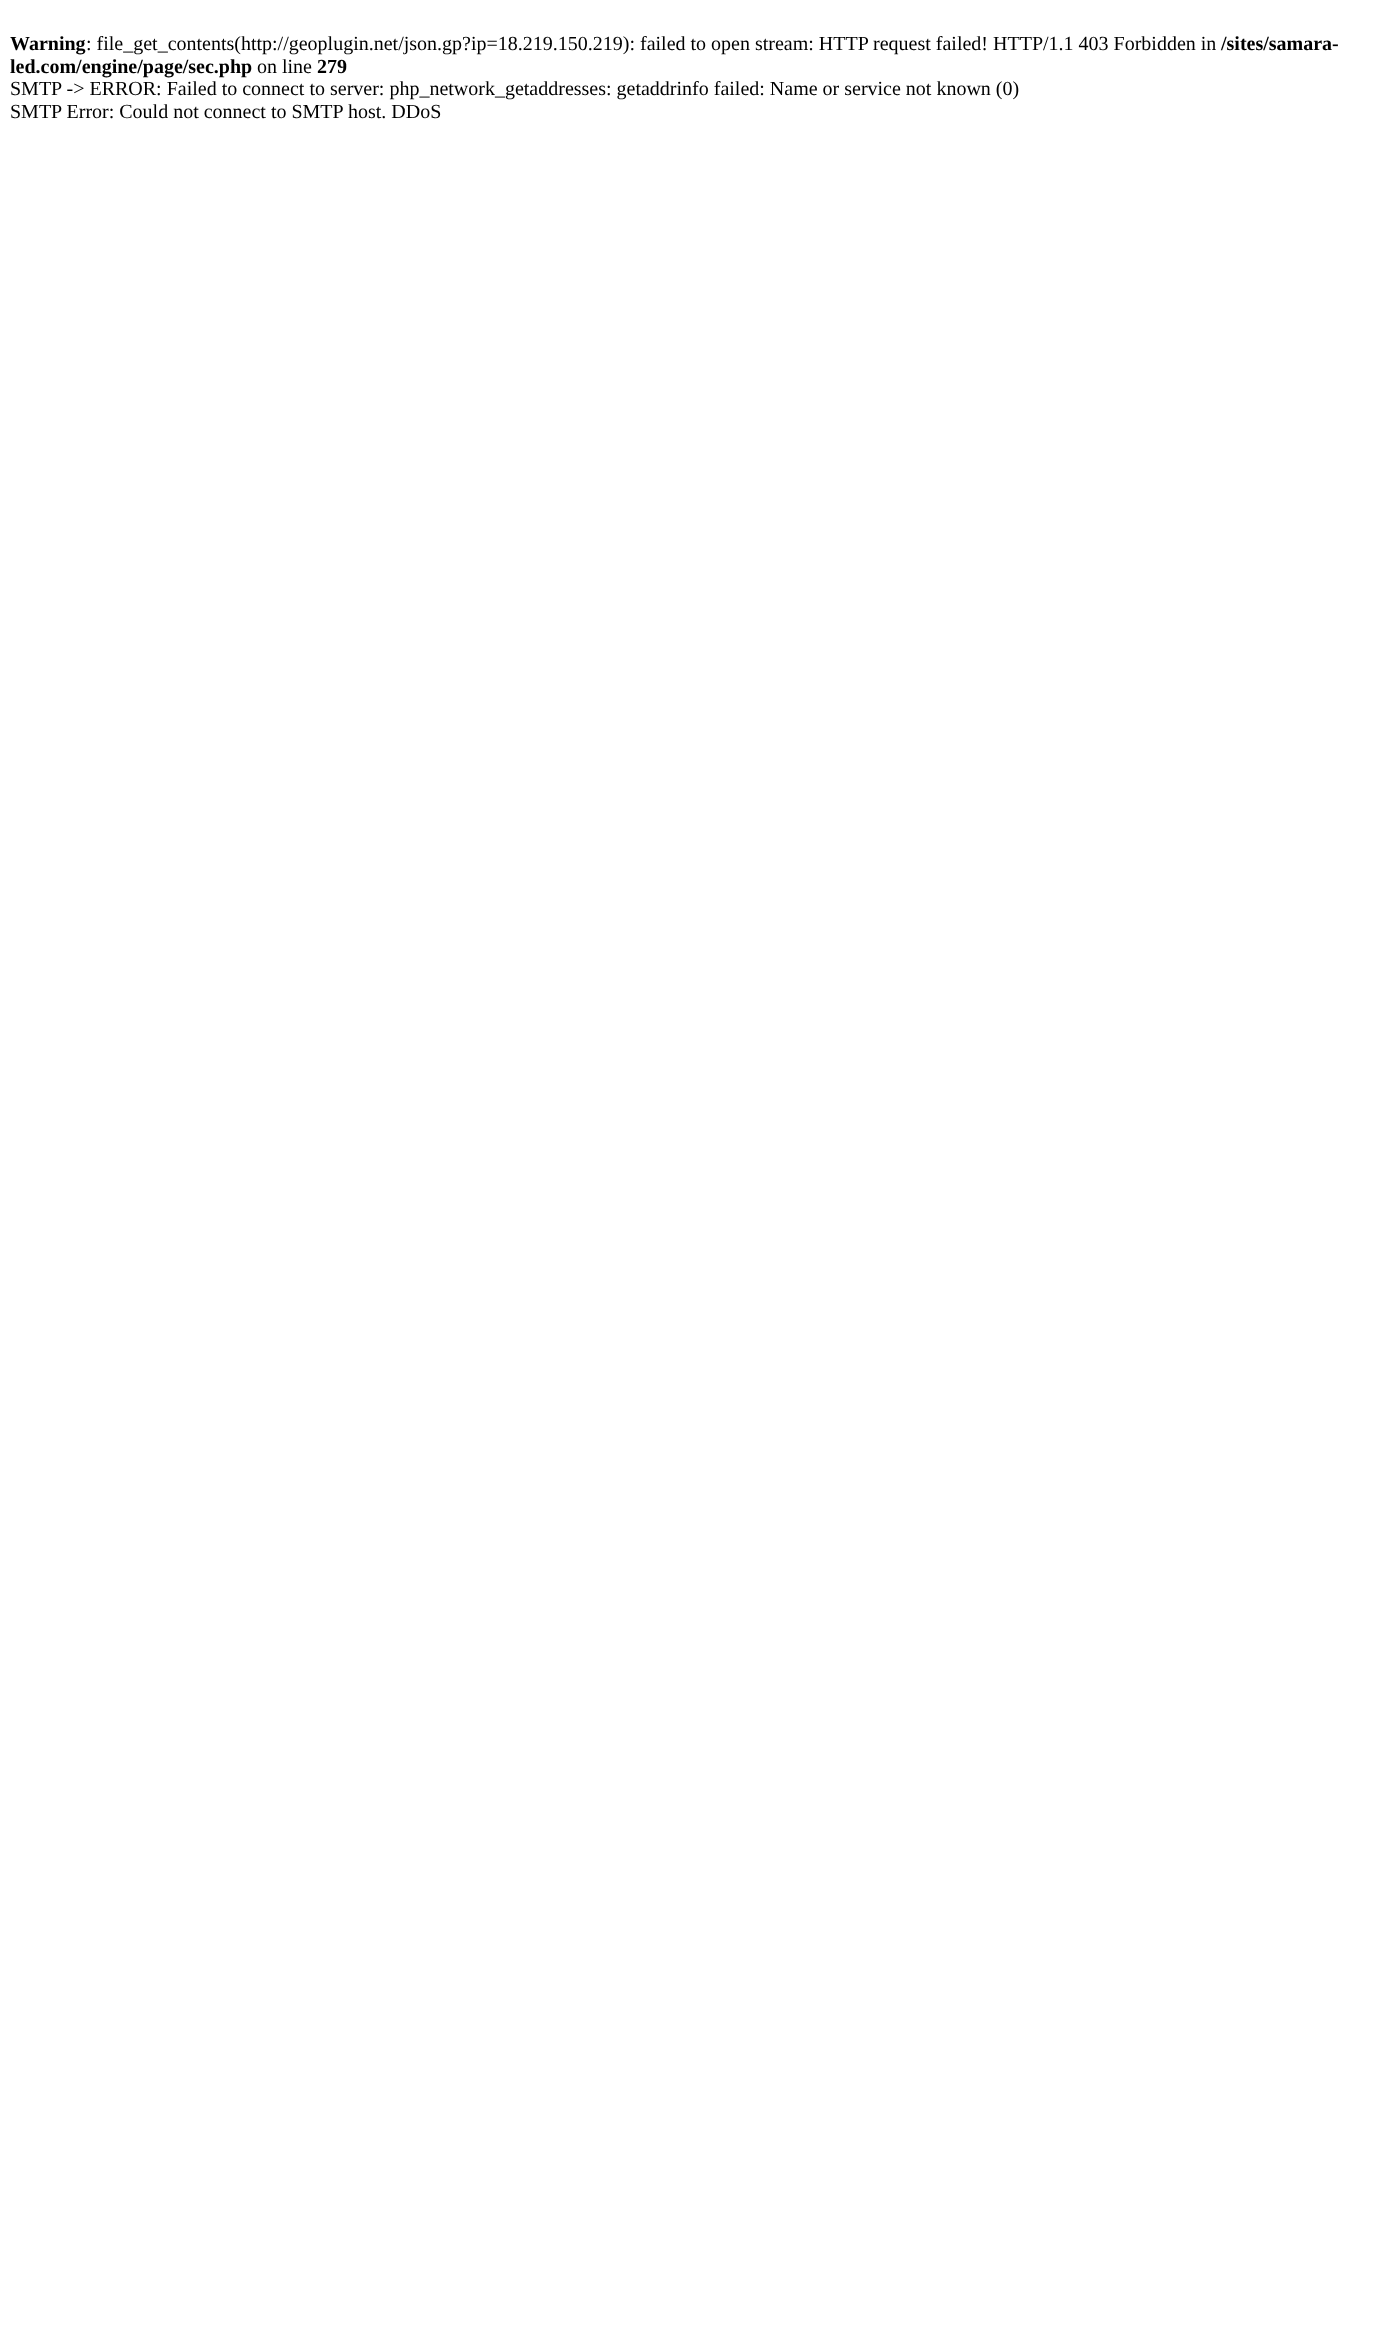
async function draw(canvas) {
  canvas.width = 1375;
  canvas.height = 2340;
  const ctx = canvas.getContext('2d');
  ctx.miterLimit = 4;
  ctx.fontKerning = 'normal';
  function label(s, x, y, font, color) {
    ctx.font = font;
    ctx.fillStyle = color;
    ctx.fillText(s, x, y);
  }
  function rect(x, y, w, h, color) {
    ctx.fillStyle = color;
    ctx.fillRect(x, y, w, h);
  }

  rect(0, 0, 1375, 2340, '#fff');
  label('Warning', 10, 50, 'bold 20px Liberation Serif', '#000');
  label(': file_get_contents(http://geoplugin.net/json.gp?ip=18.219.150.219): failed to open stream: HTTP request failed! HTTP/1.1 403 Forbidden in', 86, 50, '20px Liberation Serif', '#000');
  label('/sites/samara-', 1221, 50, 'bold 20px Liberation Serif', '#000');
  label('led.com/engine/page/sec.php', 10, 73, 'bold 20px Liberation Serif', '#000');
  label('on line', 257, 73, '20px Liberation Serif', '#000');
  label('279', 317, 73, 'bold 20px Liberation Serif', '#000');
  label('SMTP -> ERROR: Failed to connect to server: php_network_getaddresses: getaddrinfo failed: Name or service not known (0)', 10, 95, '20px Liberation Serif', '#000');
  label('SMTP Error: Could not connect to SMTP host. DDoS', 10, 118, '20px Liberation Serif', '#000');
}

draw(document.querySelector('canvas'));
